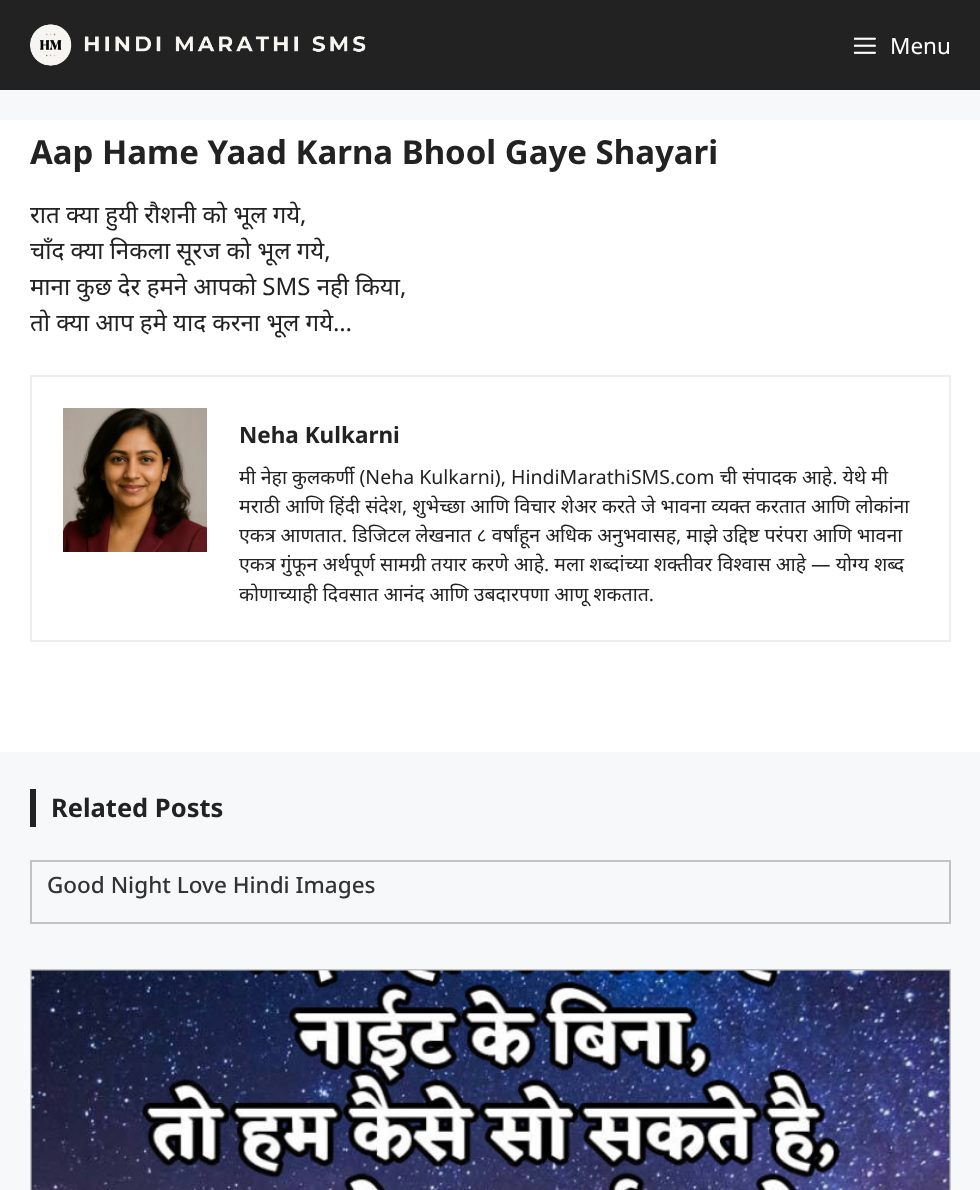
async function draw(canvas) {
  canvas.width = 980;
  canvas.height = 1190;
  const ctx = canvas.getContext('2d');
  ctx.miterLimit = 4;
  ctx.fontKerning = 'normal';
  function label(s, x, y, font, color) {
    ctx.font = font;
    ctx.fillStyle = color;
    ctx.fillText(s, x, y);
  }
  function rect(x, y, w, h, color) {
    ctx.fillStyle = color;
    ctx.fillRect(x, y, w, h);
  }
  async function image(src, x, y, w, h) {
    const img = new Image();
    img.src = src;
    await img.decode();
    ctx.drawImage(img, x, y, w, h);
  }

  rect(0, 0, 980, 1190, '#f7f8f9');
  rect(0, 0, 980, 90, '#222');
  await image('assets/img1.png', 30, 24, 336, 42);
  await image('assets/img2.png', 854, 37, 22, 17);
  label('Menu', 890, 54, '22.5px Noto Sans', '#fff');
  rect(0, 120, 980, 632, '#fff');
  label('Aap Hame Yaad Karna Bhool Gaye Shayari', 30, 164, 'bold 33px Noto Sans', '#222');
  label('रात क्या हुयी रौशनी को भूल गये,', 30, 223, '24px Noto Sans', '#222');
  label('चाँद क्या निकला सूरज को भूल गये,', 30, 259, '24px Noto Sans', '#222');
  label('माना कुछ देर हमने आपको SMS नही किया,', 30, 295, '24px Noto Sans', '#222');
  label('तो क्या आप हमे याद करना भूल गये…', 30, 331, '24px Noto Sans', '#222');
  ctx.strokeStyle = '#ededed';
  ctx.lineWidth = 2;
  ctx.strokeRect(31, 376, 919, 265);
  await image('assets/img3.png', 63, 408, 144, 144);
  label('Neha Kulkarni', 239, 443, 'bold 22.5px Noto Sans', '#222');
  label('मी नेहा कुलकर्णी (Neha Kulkarni), HindiMarathiSMS.com ची संपादक आहे. येथे मी', 239, 484, '19.5px Noto Sans', '#222');
  label('मराठी आणि हिंदी संदेश, शुभेच्छा आणि विचार शेअर करते जे भावना व्यक्त करतात आणि लोकांना', 239, 513, '19.5px Noto Sans', '#222');
  label('एकत्र आणतात. डिजिटल लेखनात ८ वर्षांहून अधिक अनुभवासह, माझे उद्दिष्ट परंपरा आणि भावना', 239, 542, '19.5px Noto Sans', '#222');
  label('एकत्र गुंफून अर्थपूर्ण सामग्री तयार करणे आहे. मला शब्दांच्या शक्तीवर विश्वास आहे — योग्य शब्द', 239, 571, '19.5px Noto Sans', '#222');
  label('कोणाच्याही दिवसात आनंद आणि उबदारपणा आणू शकतात.', 239, 601, '19.5px Noto Sans', '#222');
  rect(30, 789, 6, 38, '#222');
  label('Related Posts', 51, 817, 'bold 25.5px Noto Sans', '#222');
  ctx.strokeStyle = '#c2c2c2';
  ctx.strokeRect(31, 861, 919, 62);
  label('Good Night Love Hindi Images', 47, 893, '500 22.5px Noto Sans', '#333');
  ctx.strokeRect(31, 970, 919, 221);
  await image('assets/img4.png', 31, 970, 919, 220);
}

draw(document.querySelector('canvas'));
